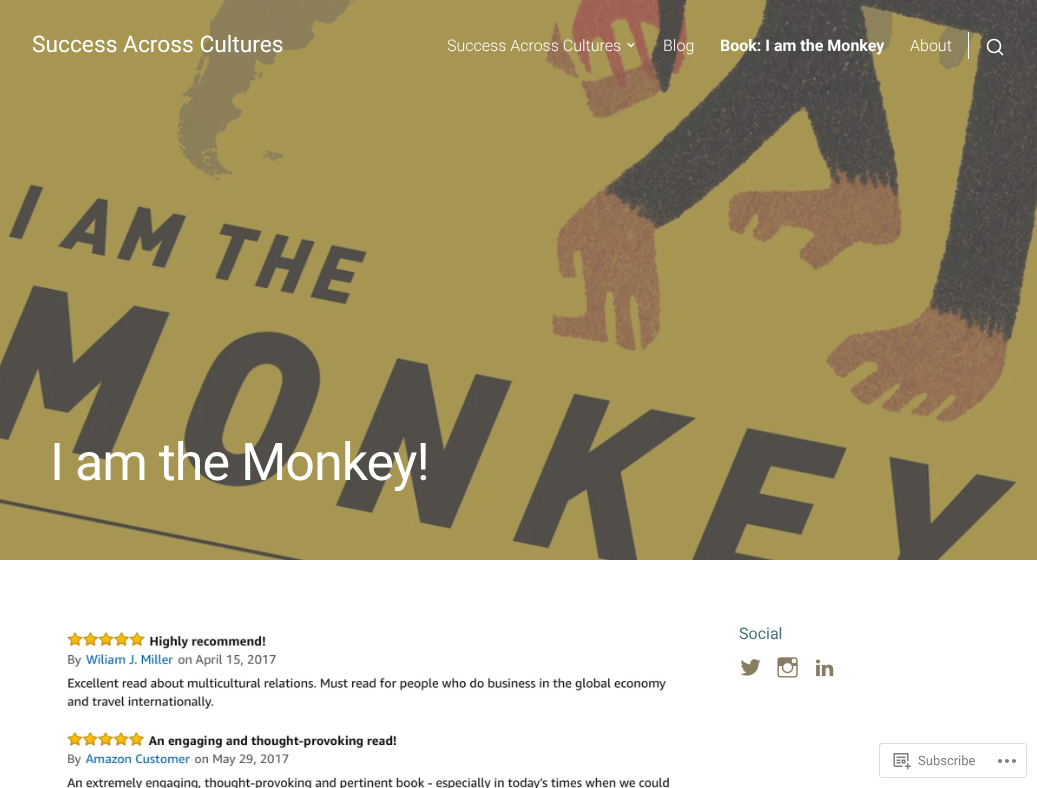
async function draw(canvas) {
  canvas.width = 1037;
  canvas.height = 788;
  const ctx = canvas.getContext('2d');
  ctx.miterLimit = 4;
  ctx.fontKerning = 'normal';
  function label(s, x, y, font, color) {
    ctx.font = font;
    ctx.fillStyle = color;
    ctx.fillText(s, x, y);
  }
  function rect(x, y, w, h, color) {
    ctx.fillStyle = color;
    ctx.fillRect(x, y, w, h);
  }
  async function image(src, x, y, w, h) {
    const img = new Image();
    img.src = src;
    await img.decode();
    ctx.drawImage(img, x, y, w, h);
  }
  let path;

  rect(0, 0, 1037, 788, '#fff');
  await image('assets/img1.png', 0, 0, 1037, 560);
  label('Success Across Cultures', 32, 52, '22.75px Roboto', '#fff');
  label('Success Across Cultures', 447, 51, '300 16px Roboto', '#fff');
  path = new Path2D('M628 43.5L631 46.5L634 43.5');
  ctx.strokeStyle = '#fff';
  ctx.lineWidth = 1.2;
  ctx.lineCap = 'round';
  ctx.lineJoin = 'round';
  ctx.stroke(path);
  label('Blog', 663, 51, '300 16px Roboto', '#fff');
  label('Book: I am the Monkey', 720, 51, 'bold 16px Roboto', '#fff');
  label('About', 910, 51, '300 16px Roboto', '#fff');
  rect(968, 32, 1, 27, '#fff');
  ctx.beginPath();
  ctx.arc(994, 46, 6.5, 0, 2 * Math.PI);
  ctx.lineWidth = 1.7;
  ctx.stroke();
  path = new Path2D('M1002.5 54.5L999 51');
  ctx.stroke(path);
  ctx.letterSpacing = '-1px';
  label('I am the Monkey!', 50, 480, '52px Roboto', '#fff');
  await image('assets/img2.png', 66, 631, 601, 78);
  await image('assets/img3.png', 66, 730, 604, 58);
  ctx.letterSpacing = '0px';
  label('Social', 739, 639, '16px Roboto', '#457676');
  await image('assets/img4.png', 740, 659, 21, 17);
  await image('assets/img5.png', 777, 657, 21, 21);
  await image('assets/img6.png', 815, 659, 19, 18);
  ctx.beginPath();
  ctx.roundRect(879.5, 743.5, 147, 34, 2.5);
  ctx.strokeStyle = '#dddddf';
  ctx.lineWidth = 1;
  ctx.lineJoin = 'miter';
  ctx.stroke();
  await image('assets/img7.png', 893, 753, 18, 17);
  label('Subscribe', 918, 765, '13px Roboto', '#7b7f85');
  await image('assets/img8.png', 998, 759, 18, 4);
}

draw(document.querySelector('canvas'));
